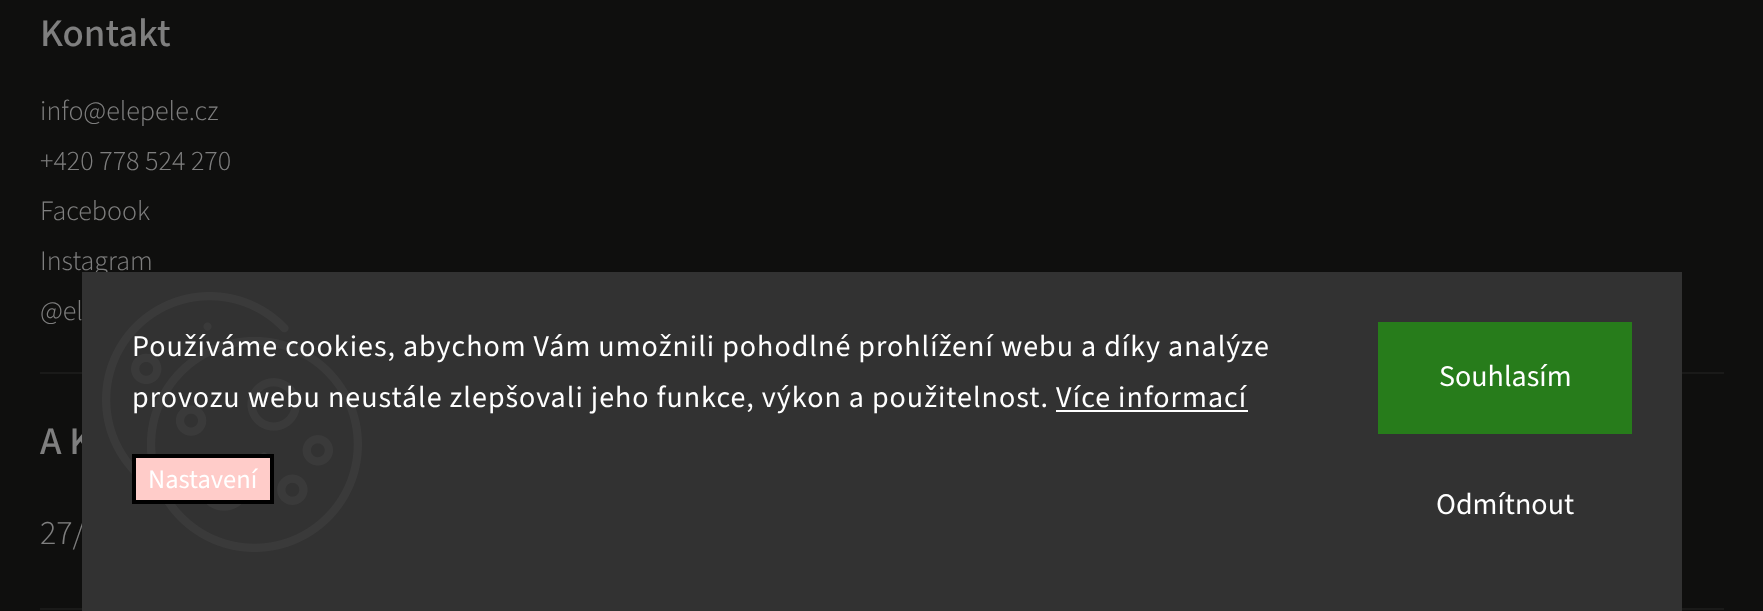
async function draw(canvas) {
  canvas.width = 1763;
  canvas.height = 611;
  const ctx = canvas.getContext('2d');
  ctx.miterLimit = 4;
  ctx.fontKerning = 'normal';
  function label(s, x, y, font, color) {
    ctx.font = font;
    ctx.fillStyle = color;
    ctx.fillText(s, x, y);
  }
  function rect(x, y, w, h, color) {
    ctx.fillStyle = color;
    ctx.fillRect(x, y, w, h);
  }
  async function image(src, x, y, w, h) {
    const img = new Image();
    img.src = src;
    await img.decode();
    ctx.drawImage(img, x, y, w, h);
  }

  rect(0, 0, 1763, 611, '#1e1e1c');
  rect(40, 372, 1684, 2, '#353533');
  label('Kontakt', 40, 46, '500 39px "Source Sans 3"', '#fff');
  label('info@elepele.cz', 40, 120, '300 28px "Source Sans 3"', '#fff');
  label('+420 778 524 270', 40, 170, '300 28px "Source Sans 3"', '#fff');
  label('Facebook', 40, 220, '300 28px "Source Sans 3"', '#fff');
  label('Instagram', 40, 270, '300 28px "Source Sans 3"', '#fff');
  label('@el', 40, 320, '300 28px "Source Sans 3"', '#fff');
  rect(40, 608, 1684, 2, '#353533');
  label('A K', 40, 454, '500 39px "Source Sans 3"', '#fff');
  label('27/', 40, 544, '300 34px "Source Sans 3"', '#fff');
  ctx.fillStyle = '#00000080';
  ctx.filter = 'blur(160px)';
  ctx.beginPath();
  ctx.rect(-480, -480, 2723, 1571);
  ctx.fill();
  ctx.filter = 'none';
  rect(82, 272, 1600, 339, '#323232');
  await image('assets/img1.png', 102, 292, 260, 260);
  ctx.letterSpacing = '1px';
  label('Používáme cookies, abychom Vám umožnili pohodlné prohlížení webu a díky analýze', 132, 356, '30px "Source Sans 3"', '#fff');
  label('provozu webu neustále zlepšovali jeho funkce, výkon a použitelnost. Více informací', 132, 407, '30px "Source Sans 3"', '#fff');
  rect(1056, 410, 192, 2, '#fff');
  ctx.fillStyle = '#ffccc9';
  ctx.beginPath();
  ctx.rect(134, 456, 138, 46);
  ctx.fill();
  ctx.strokeStyle = '#000';
  ctx.lineWidth = 4;
  ctx.stroke();
  ctx.letterSpacing = '0px';
  label('Nastavení', 148, 488, '26.5px "Source Sans 3"', '#fff');
  rect(1378, 322, 254, 112, '#277c1b');
  label('Souhlasím', 1439, 386, '30px "Source Sans 3"', '#fff');
  label('Odmítnout', 1436, 514, '30px "Source Sans 3"', '#fff');
}

draw(document.querySelector('canvas'));
